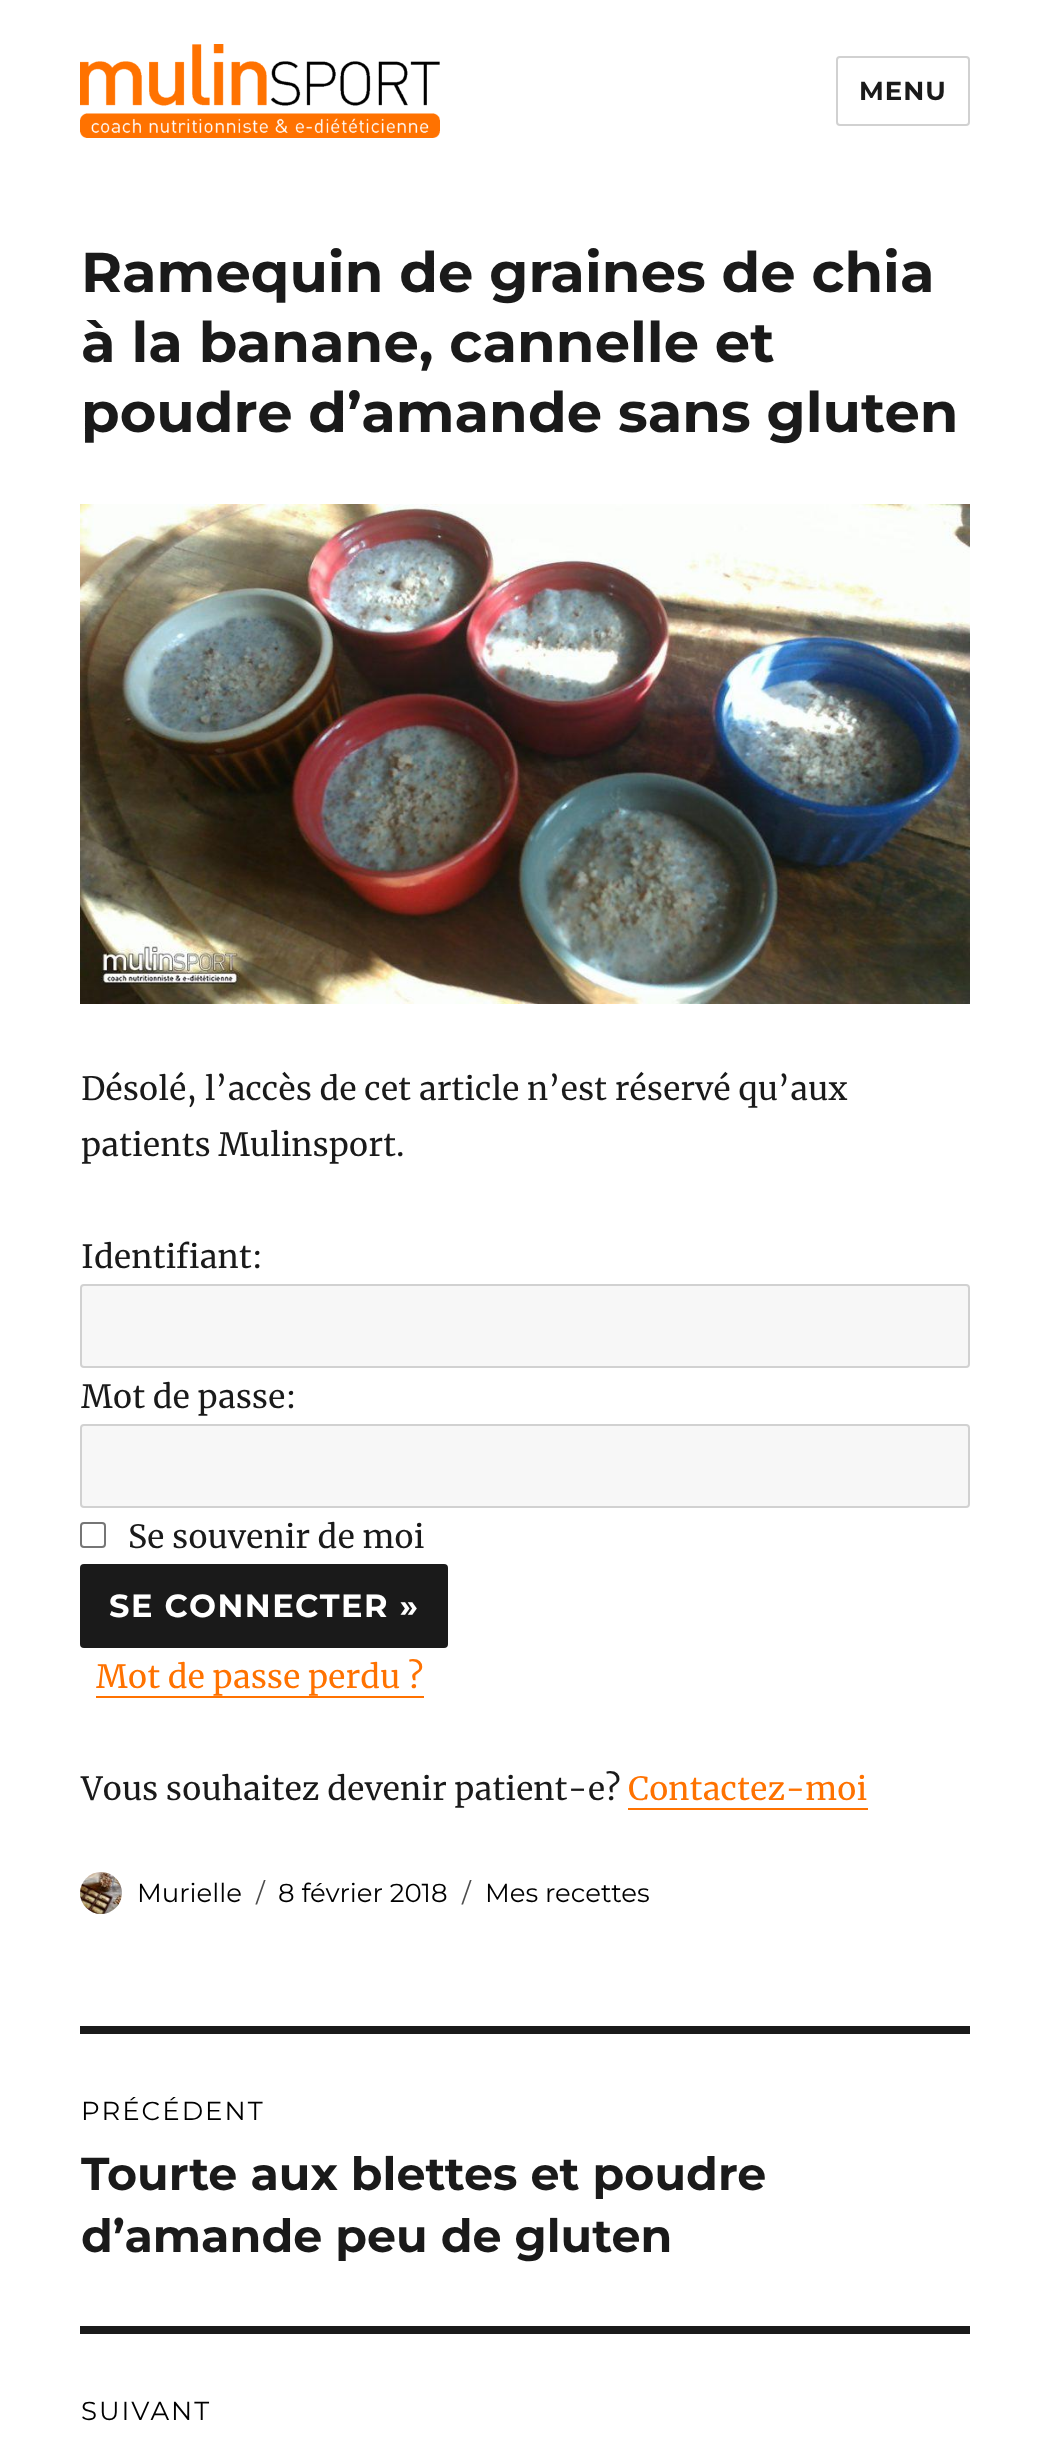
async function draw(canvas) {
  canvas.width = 1049;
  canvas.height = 2451;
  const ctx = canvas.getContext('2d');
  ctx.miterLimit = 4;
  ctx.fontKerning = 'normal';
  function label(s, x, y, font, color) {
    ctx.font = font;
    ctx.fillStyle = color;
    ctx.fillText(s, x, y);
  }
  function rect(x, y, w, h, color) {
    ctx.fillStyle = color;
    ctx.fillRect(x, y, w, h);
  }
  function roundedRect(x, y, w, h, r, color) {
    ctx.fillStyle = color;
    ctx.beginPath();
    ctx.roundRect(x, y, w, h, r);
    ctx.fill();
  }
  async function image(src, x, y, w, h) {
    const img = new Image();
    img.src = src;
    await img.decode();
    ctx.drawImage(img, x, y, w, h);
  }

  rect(0, 0, 1049, 2451, '#fff');
  await image('assets/img1.png', 80, 44, 360, 94);
  ctx.beginPath();
  ctx.roundRect(837, 57, 132, 68, 3);
  ctx.strokeStyle = '#d1d1d1';
  ctx.lineWidth = 2;
  ctx.stroke();
  ctx.letterSpacing = '1px';
  label('MENU', 859, 100, '100 26px Montserrat', '#1a1a1a');
  ctx.letterSpacing = '0px';
  label('Ramequin de graines de chia', 81, 292, '100 56px Montserrat', '#1a1a1a');
  label('à la banane, cannelle et', 81, 362, '100 56px Montserrat', '#1a1a1a');
  label('poudre d’amande sans gluten', 81, 432, '100 56px Montserrat', '#1a1a1a');
  await image('assets/img2.png', 80, 504, 890, 500);
  label('Désolé, l’accès de cet article n’est réservé qu’aux', 81, 1100, '32px Merriweather', '#1a1a1a');
  label('patients Mulinsport.', 81, 1156, '32px Merriweather', '#1a1a1a');
  label('Identifiant:', 81, 1268, '32px Merriweather', '#1a1a1a');
  ctx.fillStyle = '#f7f7f7';
  ctx.beginPath();
  ctx.roundRect(81, 1285, 888, 82, 3);
  ctx.fill();
  ctx.stroke();
  label('Mot de passe:', 81, 1408, '32px Merriweather', '#1a1a1a');
  ctx.fillStyle = '#f7f7f7';
  ctx.beginPath();
  ctx.roundRect(81, 1425, 888, 82, 3);
  ctx.fill();
  ctx.stroke();
  ctx.beginPath();
  ctx.roundRect(81, 1523, 24, 24, 3);
  ctx.strokeStyle = '#767676';
  ctx.stroke();
  label('Se souvenir de moi', 128, 1548, '32px Merriweather', '#1a1a1a');
  roundedRect(80, 1564, 368, 84, 4, '#1a1a1a');
  ctx.letterSpacing = '1.5px';
  label('SE CONNECTER »', 109, 1617, '100 32px Montserrat', '#fff');
  ctx.letterSpacing = '0px';
  label('Mot de passe perdu ?', 96, 1688, '32px Merriweather', '#ff7200');
  rect(96, 1696, 328, 2, '#ff7200');
  label('Vous souhaitez devenir patient-e?', 81, 1800, '32px Merriweather', '#1a1a1a');
  label('Contactez-moi', 628, 1800, '32px Merriweather', '#ff7200');
  rect(628, 1808, 240, 2, '#ff7200');
  await image('assets/img3.png', 80, 1872, 42, 42);
  label('Murielle', 137, 1902, '100 26px "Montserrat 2"', '#000');
  label('/', 256, 1902, '100 26px "Montserrat 2"', '#4d4d4d');
  label('8 février 2018', 278, 1902, '100 26px "Montserrat 2"', '#000');
  label('/', 462, 1902, '100 26px "Montserrat 2"', '#4d4d4d');
  label('Mes recettes', 485, 1902, '100 26px "Montserrat 2"', '#000');
  rect(80, 2026, 890, 8, '#1a1a1a');
  ctx.letterSpacing = '2px';
  label('PRÉCÉDENT', 81, 2120, '100 26px "Montserrat 2"', '#000');
  ctx.letterSpacing = '0px';
  label('Tourte aux blettes et poudre', 81, 2190, '100 46px Montserrat', '#1a1a1a');
  label('d’amande peu de gluten', 81, 2252, '100 46px Montserrat', '#1a1a1a');
  rect(80, 2326, 890, 8, '#1a1a1a');
  ctx.letterSpacing = '2px';
  label('SUIVANT', 81, 2420, '100 26px "Montserrat 2"', '#000');
}

draw(document.querySelector('canvas'));
